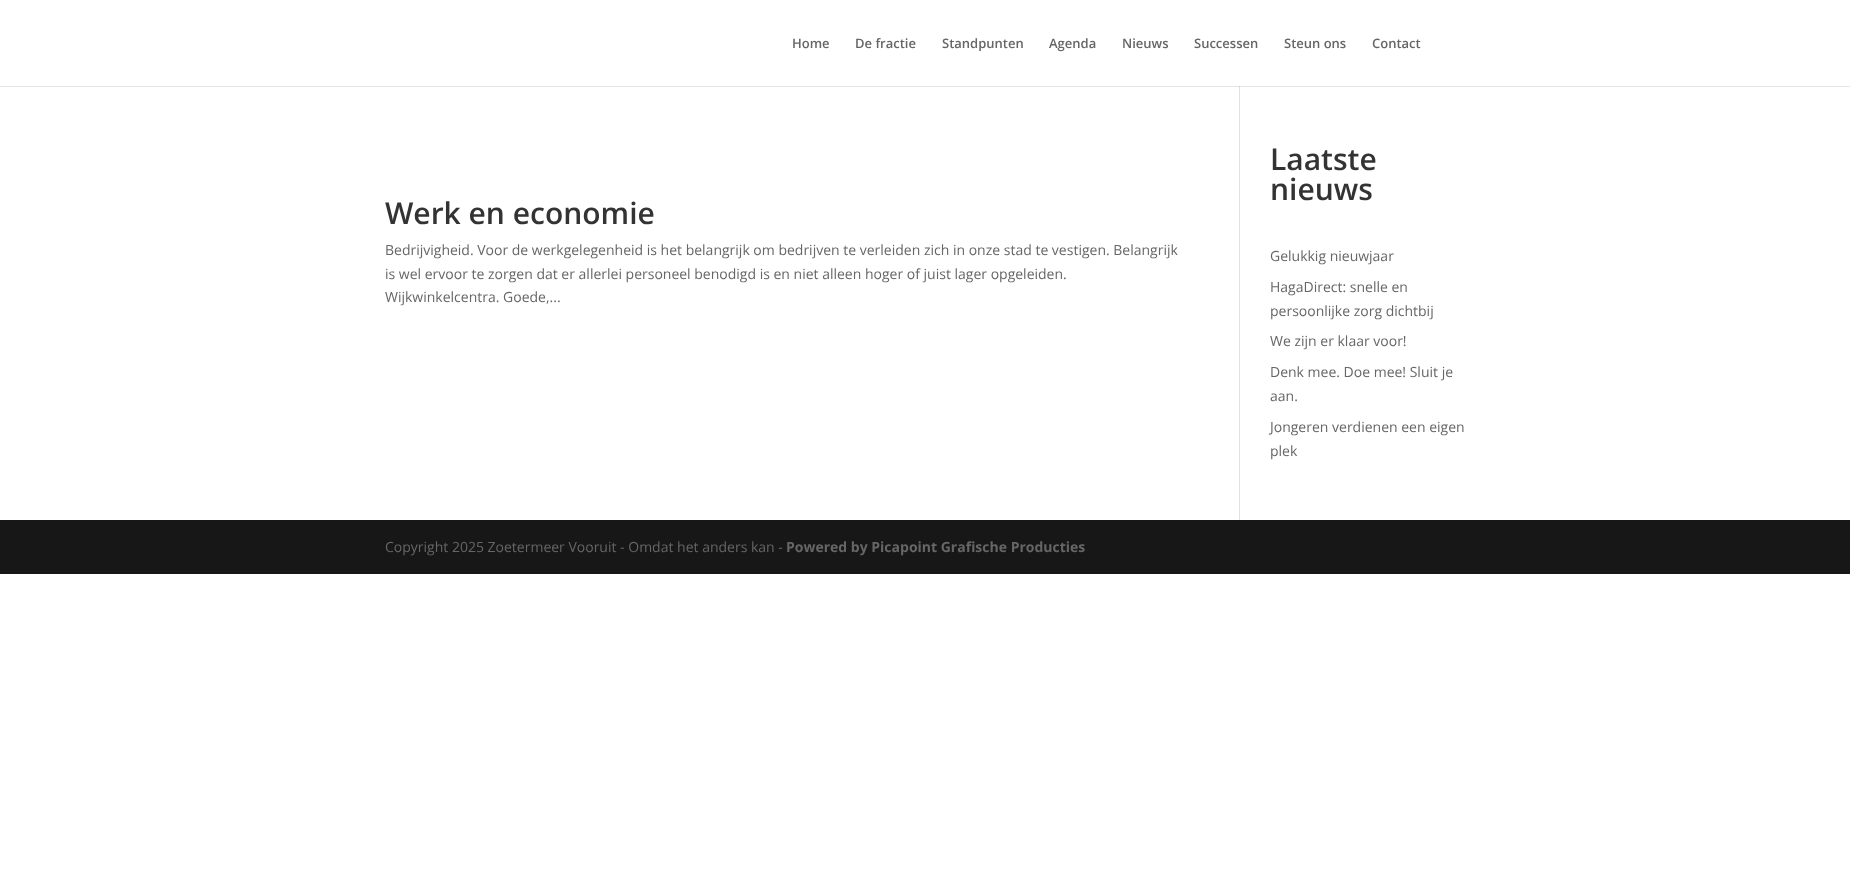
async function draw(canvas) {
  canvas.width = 1850;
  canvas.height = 880;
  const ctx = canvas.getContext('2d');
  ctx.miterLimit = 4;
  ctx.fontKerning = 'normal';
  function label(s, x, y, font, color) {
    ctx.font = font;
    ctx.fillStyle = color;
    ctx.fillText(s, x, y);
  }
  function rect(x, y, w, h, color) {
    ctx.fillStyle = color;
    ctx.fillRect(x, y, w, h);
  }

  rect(0, 0, 1850, 880, '#fff');
  rect(0, 86, 1850, 1, '#e6e6e6');
  label('Home', 792, 48, '600 13px Open Sans', '#666');
  label('De fractie', 855, 48, '600 13px Open Sans', '#666');
  label('Standpunten', 942, 48, '600 13px Open Sans', '#666');
  label('Agenda', 1049, 48, '600 13px Open Sans', '#666');
  label('Nieuws', 1122, 48, '600 13px Open Sans', '#666');
  label('Successen', 1194, 48, '600 13px Open Sans', '#666');
  label('Steun ons', 1284, 48, '600 13px Open Sans', '#666');
  label('Contact', 1372, 48, '600 13px Open Sans', '#666');
  rect(1239, 86, 1, 434, '#e2e2e2');
  rect(1239, 86, 1, 1, '#cbcbcb');
  label('Werk en economie', 385, 224, '600 30px Open Sans', '#333');
  label('Bedrijvigheid. Voor de werkgelegenheid is het belangrijk om bedrijven te verleiden zich in onze stad te vestigen. Belangrijk', 385, 255, '14px Open Sans', '#666');
  label('is wel ervoor te zorgen dat er allerlei personeel benodigd is en niet alleen hoger of juist lager opgeleiden.', 385, 279, '14px Open Sans', '#666');
  label('Wijkwinkelcentra. Goede,...', 385, 302, '14px Open Sans', '#666');
  label('Laatste', 1270, 170, '600 30px Open Sans', '#333');
  label('nieuws', 1270, 200, '600 30px Open Sans', '#333');
  label('Gelukkig nieuwjaar', 1270, 261, '14px Open Sans', '#666');
  label('HagaDirect: snelle en', 1270, 292, '14px Open Sans', '#666');
  label('persoonlijke zorg dichtbij', 1270, 316, '14px Open Sans', '#666');
  label('We zijn er klaar voor!', 1270, 346, '14px Open Sans', '#666');
  label('Denk mee. Doe mee! Sluit je', 1270, 377, '14px Open Sans', '#666');
  label('aan.', 1270, 401, '14px Open Sans', '#666');
  label('Jongeren verdienen een eigen', 1270, 432, '14px Open Sans', '#666');
  label('plek', 1270, 456, '14px Open Sans', '#666');
  rect(0, 520, 1850, 54, '#171717');
  label('Copyright 2025 Zoetermeer Vooruit - Omdat het anders kan -', 385, 552, '14px Open Sans', '#666');
  label('Powered by Picapoint Grafische Producties', 786, 552, 'bold 14px Open Sans', '#666');
}

draw(document.querySelector('canvas'));
